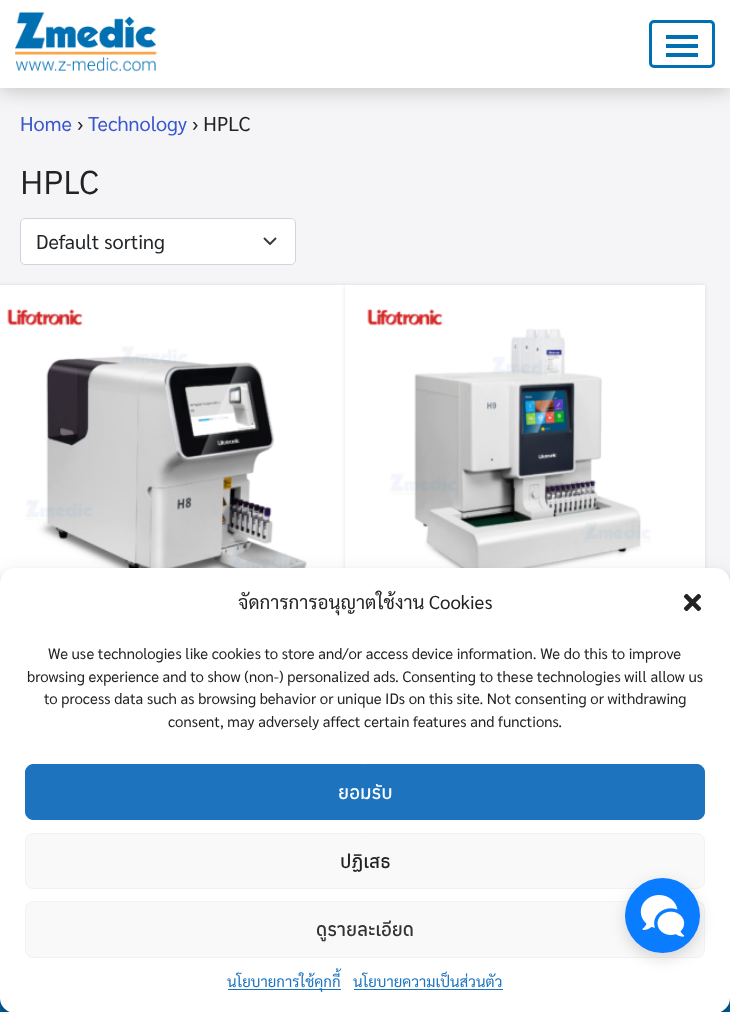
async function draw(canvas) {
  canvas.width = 730;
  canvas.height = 1012;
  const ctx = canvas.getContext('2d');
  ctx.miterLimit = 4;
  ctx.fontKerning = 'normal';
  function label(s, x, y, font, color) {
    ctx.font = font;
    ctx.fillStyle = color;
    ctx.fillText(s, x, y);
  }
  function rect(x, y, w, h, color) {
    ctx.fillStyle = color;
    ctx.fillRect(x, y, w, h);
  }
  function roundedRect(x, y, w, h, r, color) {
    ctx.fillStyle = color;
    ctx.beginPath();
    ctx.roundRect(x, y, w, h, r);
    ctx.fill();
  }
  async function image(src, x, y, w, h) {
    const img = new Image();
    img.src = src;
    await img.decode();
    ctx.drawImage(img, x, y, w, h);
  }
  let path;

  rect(0, 0, 730, 1012, '#f5f5f7');
  ctx.fillStyle = '#00000040';
  ctx.filter = 'blur(11px)';
  ctx.beginPath();
  ctx.rect(0, 0, 730, 88);
  ctx.fill();
  ctx.filter = 'none';
  rect(0, 0, 730, 88, '#fff');
  await image('assets/img1.png', 15, 12, 142, 60);
  ctx.beginPath();
  ctx.roundRect(650.5, 21.5, 63, 45, 3.5);
  ctx.strokeStyle = '#0070b3';
  ctx.lineWidth = 3;
  ctx.stroke();
  rect(666, 44, 32, 4, '#0070b3');
  rect(666, 35, 32, 4, '#0070b3');
  rect(666, 53, 32, 4, '#0070b3');
  label('Home', 20, 131, '20px Sarabun', '#3857cc');
  label('›', 77, 131, '20px Sarabun', '#222');
  label('Technology', 88, 131, '20px Sarabun', '#3857cc');
  label('› HPLC', 192, 131, '20px Sarabun', '#222');
  label('HPLC', 20, 194, '33px Anuphan', '#222');
  roundedRect(20, 218, 276, 47, 5, '#fff');
  path = new Path2D('M264.5 238.5L270 244L275.5 238.5');
  ctx.strokeStyle = '#343a40';
  ctx.lineWidth = 1.9;
  ctx.lineCap = 'round';
  ctx.lineJoin = 'round';
  ctx.stroke(path);
  ctx.beginPath();
  ctx.roundRect(20.5, 218.5, 275, 46, 4.5);
  ctx.strokeStyle = '#ced4da';
  ctx.lineWidth = 1;
  ctx.lineJoin = 'miter';
  ctx.stroke();
  label('Default sorting', 36, 249, '20px Sarabun', '#212529');
  ctx.fillStyle = '#0000001a';
  ctx.filter = 'blur(2px)';
  ctx.beginPath();
  ctx.rect(-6, 285, 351, 478);
  ctx.fill();
  ctx.filter = 'none';
  rect(0, 285, 345, 298, '#fff');
  await image('assets/img2.png', 7, 308, 300, 263);
  ctx.fillStyle = '#0000001a';
  ctx.filter = 'blur(2px)';
  ctx.beginPath();
  ctx.rect(345, 285, 360, 478);
  ctx.fill();
  ctx.filter = 'none';
  rect(345, 285, 360, 283, '#fff');
  await image('assets/img3.png', 367, 308, 284, 260);
  rect(0, 998, 730, 14, '#0068ae');
  ctx.fillStyle = '#0000003b';
  ctx.filter = 'blur(4px)';
  ctx.beginPath();
  ctx.roundRect(0, 575, 730, 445, 15);
  ctx.fill();
  ctx.filter = 'none';
  ctx.fillStyle = '#00000030';
  ctx.filter = 'blur(12.5px)';
  ctx.beginPath();
  ctx.roundRect(0, 580, 730, 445, 15);
  ctx.fill();
  ctx.filter = 'none';
  roundedRect(0, 568, 730, 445, 15, '#fff');
  label('จัดการการอนุญาตใช้งาน Cookies', 238, 609, '18.75px Sarabun', '#222');
  await image('assets/img4.png', 683, 593, 19, 19);
  label('We use technologies like cookies to store and/or access device information. We do this to improve', 48, 659, '15px Sarabun', '#222');
  label('browsing experience and to show (non-) personalized ads. Consenting to these technologies will allow us', 27, 682, '15px Sarabun', '#222');
  label('to process data such as browsing behavior or unique IDs on this site. Not consenting or withdrawing', 44, 704, '15px Sarabun', '#222');
  label('consent, may adversely affect certain features and functions.', 168, 727, '15px Sarabun', '#222');
  ctx.fillStyle = '#1e73be';
  ctx.beginPath();
  ctx.roundRect(25.5, 764.5, 679, 55, 7.5);
  ctx.fill();
  ctx.strokeStyle = '#1e73be';
  ctx.stroke();
  label('ยอมรับ', 338, 799, '500 18.75px Anuphan', '#fff');
  ctx.fillStyle = '#f9f9f9';
  ctx.beginPath();
  ctx.roundRect(25.5, 833.5, 679, 55, 7.5);
  ctx.fill();
  ctx.strokeStyle = '#f2f2f2';
  ctx.stroke();
  label('ปฏิเสธ', 340, 868, '500 18.75px Anuphan', '#222');
  ctx.fillStyle = '#f9f9f9';
  ctx.beginPath();
  ctx.roundRect(25.5, 901.5, 679, 56, 7.5);
  ctx.fill();
  ctx.stroke();
  label('ดูรายละเอียด', 316, 936, '500 18.75px Anuphan', '#333');
  rect(228, 989, 113, 1, '#1e73be');
  label('นโยบายการใช้คุกกี้', 227, 987, '15px Sarabun', '#1e73be');
  label('นโยบายความเป็นส่วนตัว', 353, 987, '15px Sarabun', '#1e73be');
  rect(354, 989, 149, 1, '#1e73be');
  ctx.fillStyle = '#00000026';
  ctx.filter = 'blur(7.5px)';
  ctx.beginPath();
  ctx.roundRect(625, 883, 75, 75, 37.5);
  ctx.fill();
  ctx.filter = 'none';
  ctx.fillStyle = '#0a7cff';
  ctx.beginPath();
  ctx.arc(662.5, 915.5, 37.5, 0, 2 * Math.PI);
  ctx.fill();
  await image('assets/img5.png', 640, 895, 45, 42);
}

draw(document.querySelector('canvas'));
